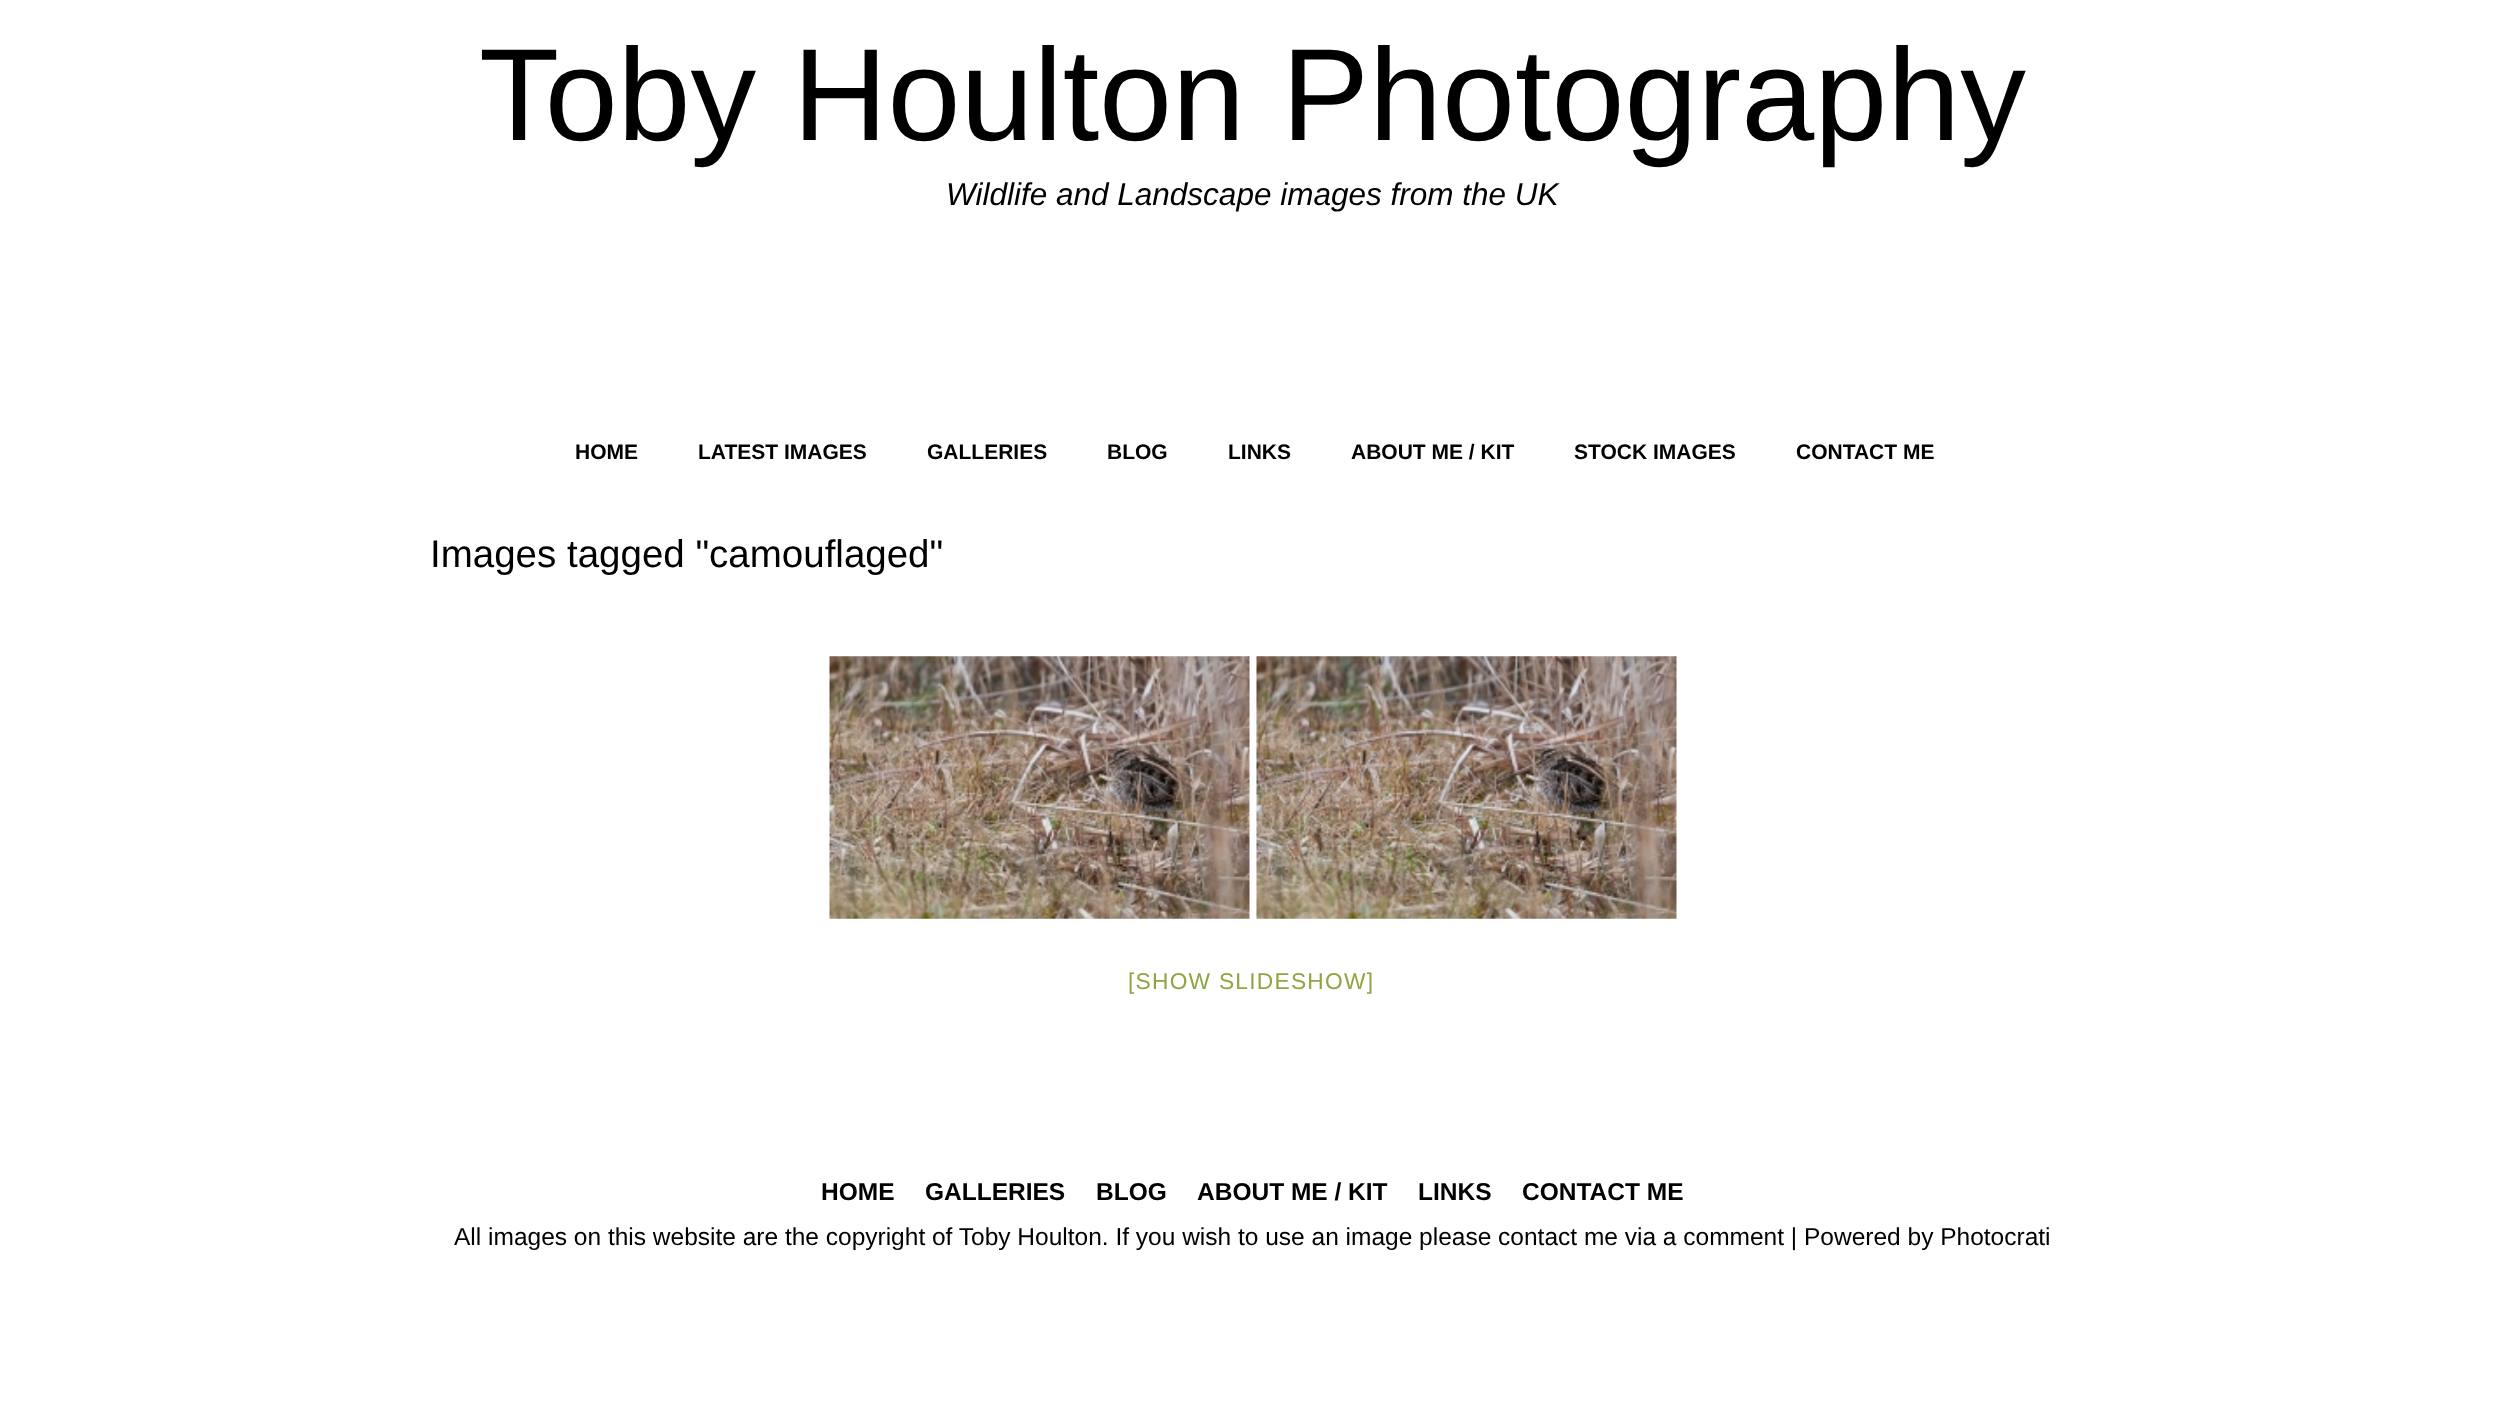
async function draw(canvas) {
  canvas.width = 2504;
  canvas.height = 1422;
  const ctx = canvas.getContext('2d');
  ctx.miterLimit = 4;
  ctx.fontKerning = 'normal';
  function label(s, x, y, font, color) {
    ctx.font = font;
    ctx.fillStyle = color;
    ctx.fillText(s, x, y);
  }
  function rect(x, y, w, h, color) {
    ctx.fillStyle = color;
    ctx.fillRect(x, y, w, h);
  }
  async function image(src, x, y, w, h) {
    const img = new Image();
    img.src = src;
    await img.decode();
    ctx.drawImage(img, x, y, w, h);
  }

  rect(0, 0, 2504, 1422, '#fff');
  label('Toby Houlton Photography', 479, 140, '131.25px Liberation Sans', '#000');
  label('Wildlife and Landscape images from the UK', 946, 205, 'italic 31.5px Liberation Sans', '#000');
  label('HOME', 575, 459, 'bold 21px Liberation Sans', '#000');
  label('LATEST IMAGES', 698, 459, 'bold 21px Liberation Sans', '#000');
  label('GALLERIES', 927, 459, 'bold 21px Liberation Sans', '#000');
  label('BLOG', 1107, 459, 'bold 21px Liberation Sans', '#000');
  label('LINKS', 1228, 459, 'bold 21px Liberation Sans', '#000');
  label('ABOUT ME / KIT', 1351, 459, 'bold 21px Liberation Sans', '#000');
  label('STOCK IMAGES', 1574, 459, 'bold 21px Liberation Sans', '#000');
  label('CONTACT ME', 1796, 459, 'bold 21px Liberation Sans', '#000');
  label('Images tagged "camouflaged"', 430, 567, '38.5px Liberation Sans', '#000');
  await image('assets/img1.png', 829, 656, 421, 263);
  await image('assets/img2.png', 1256, 656, 421, 263);
  ctx.letterSpacing = '1.25px';
  label('[SHOW SLIDESHOW]', 1128, 989, '22.75px Liberation Sans', '#8ca644');
  ctx.letterSpacing = '0px';
  label('HOME', 821, 1200, 'bold 24.5px Liberation Sans', '#000');
  label('GALLERIES', 925, 1200, 'bold 24.5px Liberation Sans', '#000');
  label('BLOG', 1096, 1200, 'bold 24.5px Liberation Sans', '#000');
  label('ABOUT ME / KIT', 1197, 1200, 'bold 24.5px Liberation Sans', '#000');
  label('LINKS', 1418, 1200, 'bold 24.5px Liberation Sans', '#000');
  label('CONTACT ME', 1522, 1200, 'bold 24.5px Liberation Sans', '#000');
  label('All images on this website are the copyright of Toby Houlton. If you wish to use an image please contact me via a comment | Powered by Photocrati', 454, 1245, '24.5px Liberation Sans', '#000');
}

draw(document.querySelector('canvas'));
